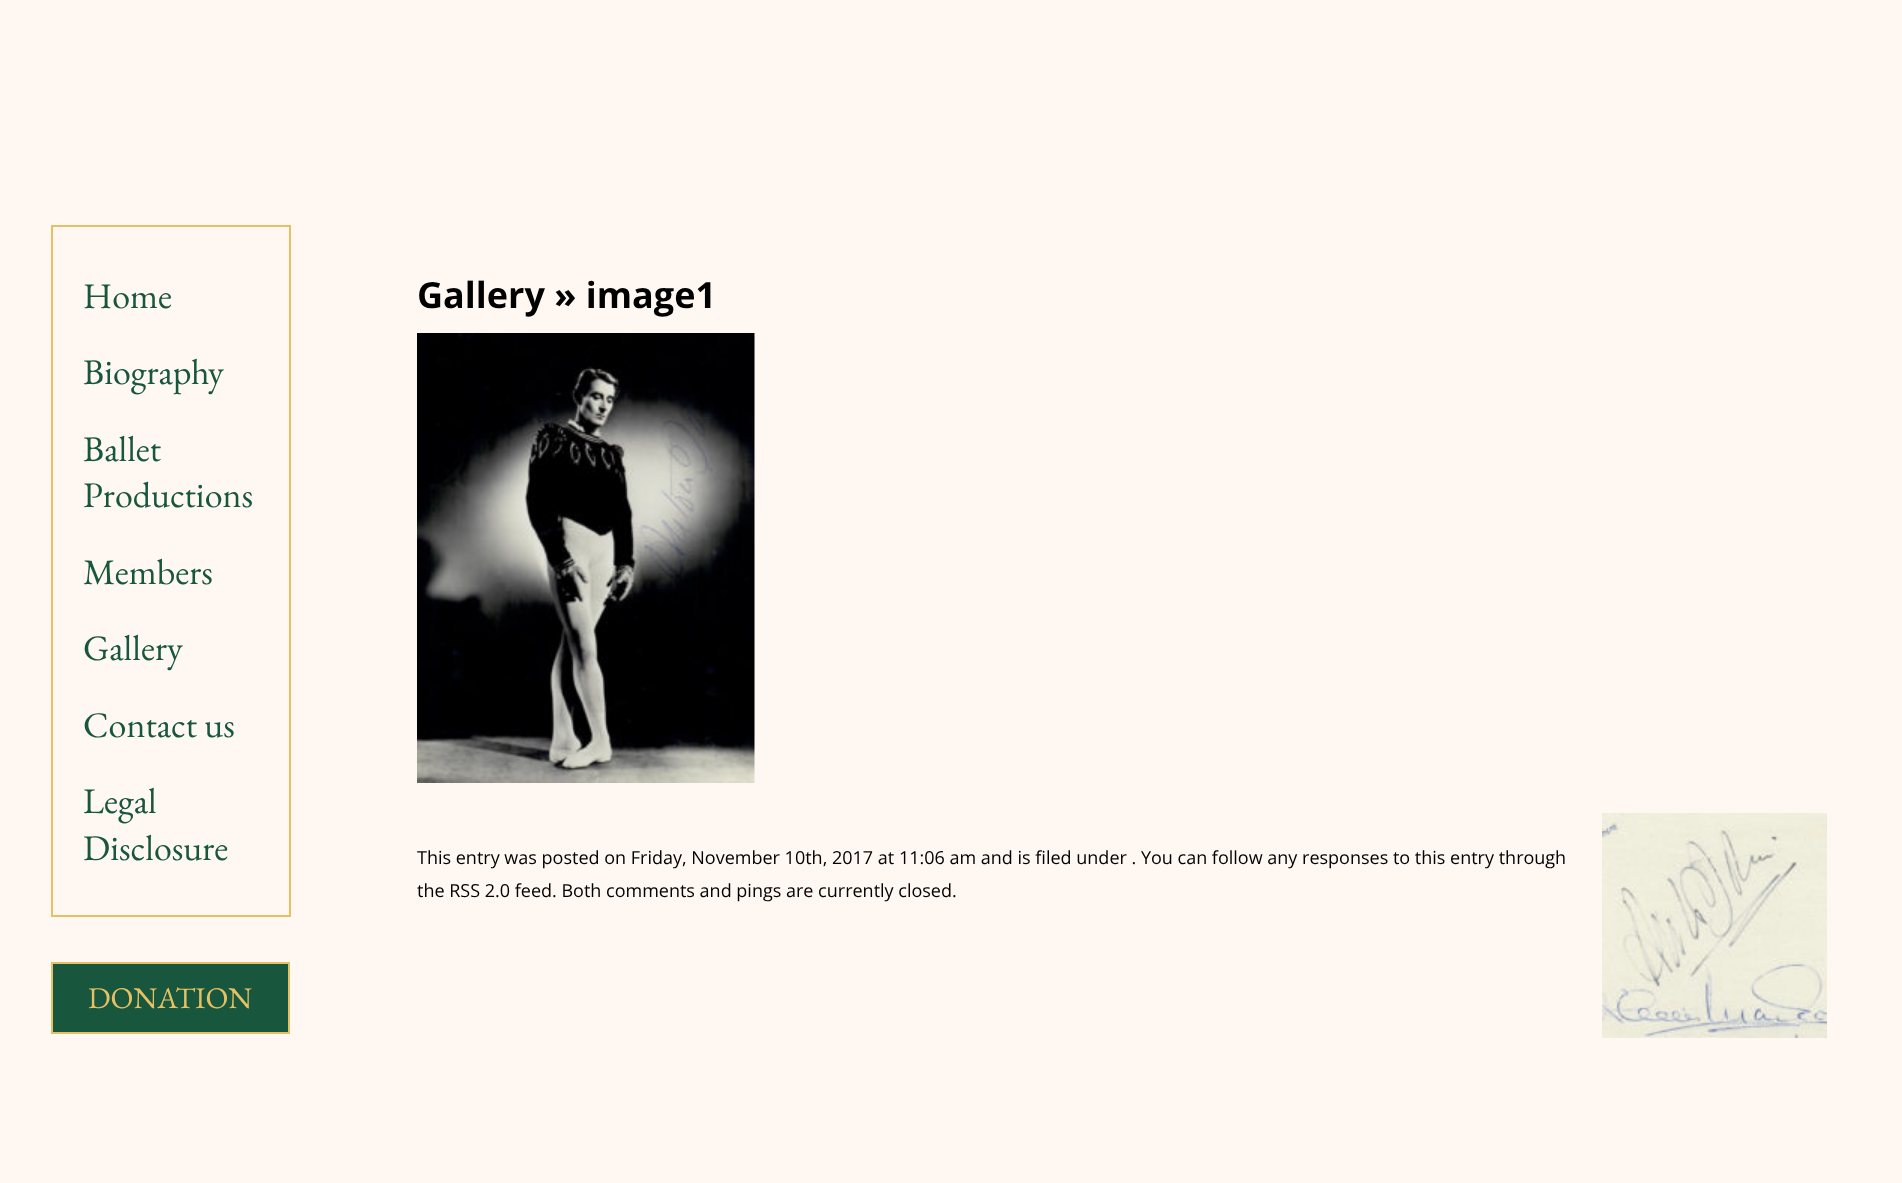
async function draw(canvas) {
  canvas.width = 1902;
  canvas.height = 1183;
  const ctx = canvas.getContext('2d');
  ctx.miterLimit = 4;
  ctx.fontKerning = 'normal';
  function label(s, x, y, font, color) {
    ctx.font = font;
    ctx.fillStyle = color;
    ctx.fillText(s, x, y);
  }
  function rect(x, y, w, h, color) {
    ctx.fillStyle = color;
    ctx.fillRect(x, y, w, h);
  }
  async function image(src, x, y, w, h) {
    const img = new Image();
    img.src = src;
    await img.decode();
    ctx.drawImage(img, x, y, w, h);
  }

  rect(0, 0, 1902, 1183, '#fff8f2');
  ctx.strokeStyle = '#e5c163';
  ctx.lineWidth = 2;
  ctx.strokeRect(52, 226, 238, 690);
  label('Home', 83, 308, '36px EB Garamond', '#18563e');
  label('Biography', 83, 384, '36px EB Garamond', '#18563e');
  label('Ballet', 83, 461, '36px EB Garamond', '#18563e');
  label('Productions', 83, 507, '36px EB Garamond', '#18563e');
  label('Members', 83, 584, '36px EB Garamond', '#18563e');
  label('Gallery', 83, 660, '36px EB Garamond', '#18563e');
  label('Contact us', 83, 737, '36px EB Garamond', '#18563e');
  label('Legal', 83, 813, '36px EB Garamond', '#18563e');
  label('Disclosure', 83, 860, '36px EB Garamond', '#18563e');
  ctx.beginPath();
  ctx.rect(52, 963, 237, 70);
  ctx.fill();
  ctx.stroke();
  label('DONATION', 88, 1008, '30px EB Garamond', '#e5c163');
  label('Gallery » image1', 417, 308, 'bold 36px Open Sans', '#000');
  await image('assets/img1.png', 417, 333, 338, 450);
  label('This entry was posted on Friday, November 10th, 2017 at 11:06 am and is filed under . You can follow any responses to this entry through', 417, 864, '18px Open Sans', '#000');
  label('the RSS 2.0 feed. Both comments and pings are currently closed.', 417, 897, '18px Open Sans', '#000');
  await image('assets/img2.png', 1602, 813, 225, 225);
}

draw(document.querySelector('canvas'));
